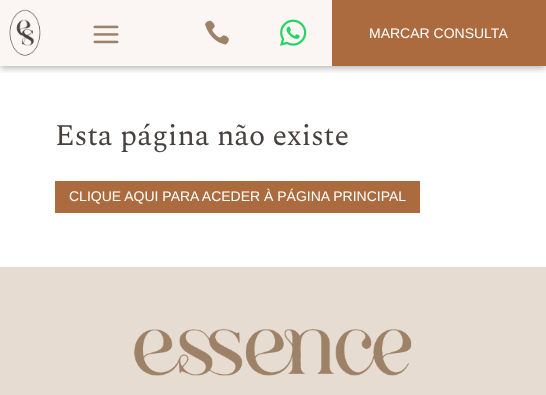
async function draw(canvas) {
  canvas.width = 546;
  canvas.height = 395;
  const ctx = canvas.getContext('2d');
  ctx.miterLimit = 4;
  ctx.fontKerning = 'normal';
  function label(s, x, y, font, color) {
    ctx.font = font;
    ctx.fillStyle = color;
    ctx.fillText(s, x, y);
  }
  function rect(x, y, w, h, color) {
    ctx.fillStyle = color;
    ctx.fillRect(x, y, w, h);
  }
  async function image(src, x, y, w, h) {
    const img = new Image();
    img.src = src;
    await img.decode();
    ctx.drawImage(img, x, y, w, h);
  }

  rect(0, 0, 546, 395, '#fbf6f4');
  rect(0, 66, 546, 201, '#fff');
  ctx.save();
  ctx.beginPath();
  ctx.rect(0, 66, 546, 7);
  ctx.clip();
  ctx.fillStyle = '#0000004d';
  ctx.filter = 'blur(3.5px)';
  ctx.beginPath();
  ctx.rect(0, 2, 546, 66);
  ctx.fill();
  ctx.filter = 'none';
  ctx.restore();
  await image('assets/img1.png', 9, 9, 32, 47);
  await image('assets/img2.png', 93, 25, 26, 19);
  await image('assets/img3.png', 205, 20, 24, 25);
  await image('assets/img4.png', 280, 19, 27, 27);
  rect(332, 0, 214, 66, '#ac6b3e');
  label('MARCAR CONSULTA', 369, 38, '14px Liberation Sans', '#fff');
  label('Esta página não existe', 55, 145, '30px Spectral', '#47403d');
  rect(55, 181, 365, 32, '#ac6b3e');
  label('CLIQUE AQUI PARA ACEDER À PÁGINA PRINCIPAL', 69, 201, '14px Liberation Sans', '#fff');
  rect(0, 267, 546, 128, '#e6dcd1');
  await image('assets/img5.png', 134, 329, 278, 47);
}

draw(document.querySelector('canvas'));
